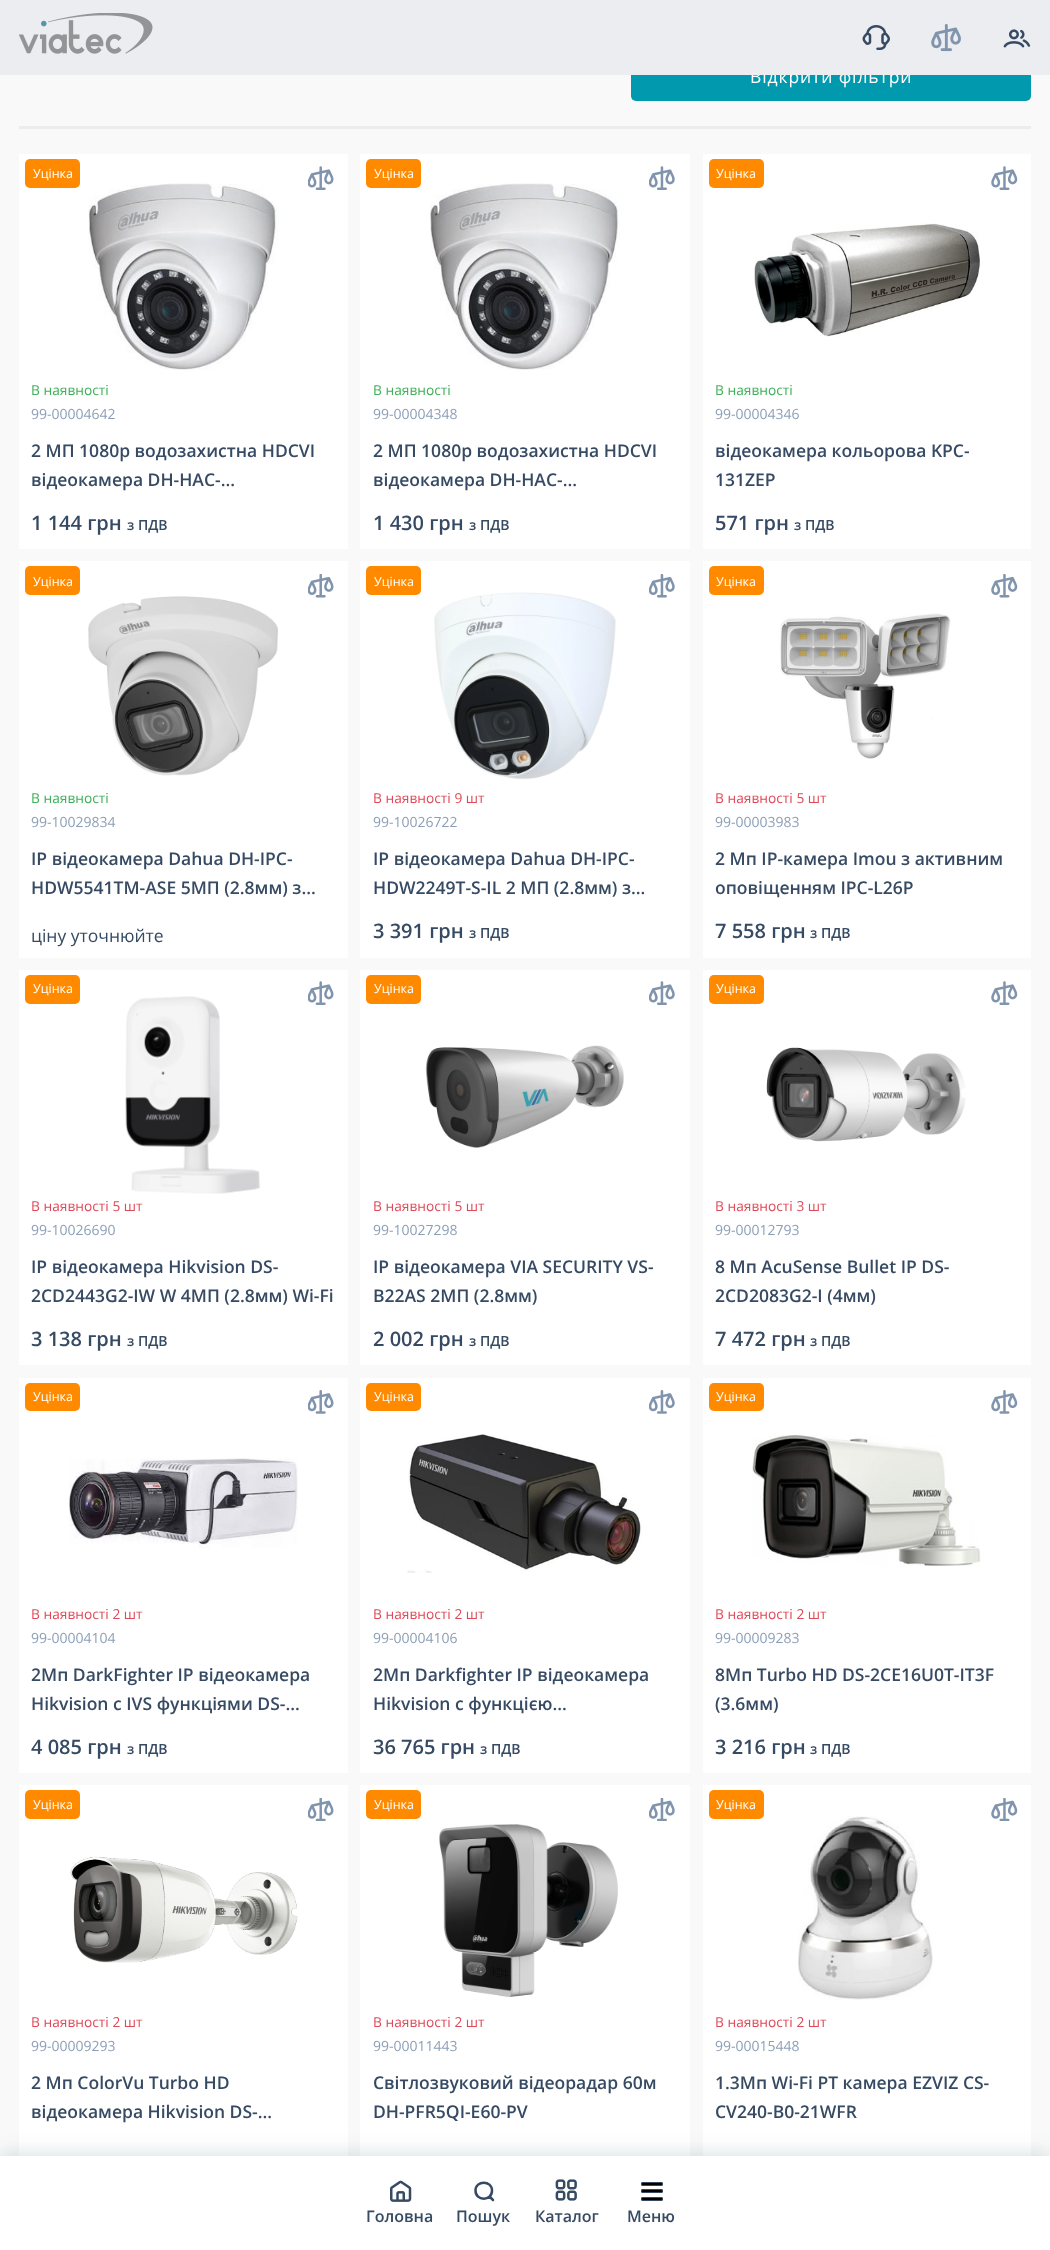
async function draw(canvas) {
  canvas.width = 1050;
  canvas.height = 2250;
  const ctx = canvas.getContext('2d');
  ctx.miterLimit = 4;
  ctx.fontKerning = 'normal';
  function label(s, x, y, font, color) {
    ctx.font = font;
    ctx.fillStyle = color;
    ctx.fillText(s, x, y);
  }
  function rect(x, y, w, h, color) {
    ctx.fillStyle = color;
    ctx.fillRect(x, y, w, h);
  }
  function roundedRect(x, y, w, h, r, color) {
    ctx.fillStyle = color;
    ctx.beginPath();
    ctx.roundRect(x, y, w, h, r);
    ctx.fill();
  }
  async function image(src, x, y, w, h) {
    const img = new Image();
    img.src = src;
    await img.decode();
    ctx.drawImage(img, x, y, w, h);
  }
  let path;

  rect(0, 0, 1050, 2250, '#f9f9f9');
  roundedRect(631, 51, 400, 50, 5, '#0099ad');
  ctx.letterSpacing = '0.9px';
  label('Відкрити фільтри', 750, 83, '17.5px Open Sans', '#fff');
  rect(0, 0, 1050, 75, '#ebedf1');
  await image('assets/img1.png', 19, 13, 134, 41);
  await image('assets/img2.png', 862, 25, 28, 25);
  await image('assets/img3.png', 931, 24, 30, 28);
  await image('assets/img4.png', 1003, 29, 28, 19);
  rect(19, 126, 1012, 3, '#ececec');
  rect(19, 154, 329, 395, '#fff');
  roundedRect(25, 159, 55, 29, 5, '#ff8a00');
  ctx.letterSpacing = '0px';
  label('Уцінка', 33, 178, '12.5px Open Sans', '#fff');
  await image('assets/img5.png', 308, 166, 26, 24);
  await image('assets/img6.png', 88, 183, 191, 187);
  label('В наявності', 31, 395, '13.75px Open Sans', '#3eb058');
  label('99-00004642', 31, 419, '14px Open Sans', '#8d9fb6');
  label('2 МП 1080p водозахистна HDCVI', 31, 457, '600 17.5px Open Sans', '#364a63');
  label('відеокамера DH-HAC-…', 31, 486, '600 17.5px Open Sans', '#364a63');
  label('1 144 грн', 31, 530, '600 20px Open Sans', '#364a63');
  label('з ПДВ', 127, 530, '600 14px Open Sans', '#364a63');
  rect(360, 154, 330, 395, '#fff');
  roundedRect(366, 159, 55, 29, 5, '#ff8a00');
  label('Уцінка', 374, 178, '12.5px Open Sans', '#fff');
  await image('assets/img7.png', 649, 166, 26, 24);
  await image('assets/img8.png', 430, 183, 190, 187);
  label('В наявності', 373, 395, '13.75px Open Sans', '#3eb058');
  label('99-00004348', 373, 419, '14px Open Sans', '#8d9fb6');
  label('2 МП 1080p водозахистна HDCVI', 373, 457, '600 17.5px Open Sans', '#364a63');
  label('відеокамера DH-HAC-…', 373, 486, '600 17.5px Open Sans', '#364a63');
  label('1 430 грн', 373, 530, '600 20px Open Sans', '#364a63');
  label('з ПДВ', 469, 530, '600 14px Open Sans', '#364a63');
  rect(703, 154, 328, 395, '#fff');
  roundedRect(709, 159, 55, 29, 5, '#ff8a00');
  label('Уцінка', 716, 178, '12.5px Open Sans', '#fff');
  await image('assets/img9.png', 991, 166, 27, 24);
  await image('assets/img10.png', 754, 223, 226, 114);
  label('В наявності', 715, 395, '13.75px Open Sans', '#3eb058');
  label('99-00004346', 715, 419, '14px Open Sans', '#8d9fb6');
  label('відеокамера кольорова KPC-', 715, 457, '600 17.5px Open Sans', '#364a63');
  label('131ZEP', 715, 486, '600 17.5px Open Sans', '#364a63');
  label('571 грн', 715, 530, '600 20px Open Sans', '#364a63');
  label('з ПДВ', 794, 530, '600 14px Open Sans', '#364a63');
  rect(19, 561, 329, 397, '#fff');
  roundedRect(25, 566, 55, 29, 5, '#ff8a00');
  label('Уцінка', 33, 586, '12.5px Open Sans', '#fff');
  await image('assets/img11.png', 308, 574, 26, 24);
  await image('assets/img12.png', 88, 596, 190, 180);
  label('В наявності', 31, 803, '13.75px Open Sans', '#3eb058');
  label('99-10029834', 31, 827, '14px Open Sans', '#8d9fb6');
  label('IP відеокамера Dahua DH-IPC-', 31, 865, '600 17.5px Open Sans', '#364a63');
  label('HDW5541TM-ASE 5МП (2.8мм) з…', 31, 894, '600 17.5px Open Sans', '#364a63');
  label('ціну уточнюйте', 31, 942, '17.5px Open Sans', '#364a63');
  rect(360, 561, 330, 397, '#fff');
  roundedRect(366, 566, 55, 29, 5, '#ff8a00');
  label('Уцінка', 374, 586, '12.5px Open Sans', '#fff');
  await image('assets/img13.png', 649, 574, 26, 24);
  await image('assets/img14.png', 434, 592, 182, 188);
  label('В наявності 9 шт', 373, 803, '13.75px Open Sans', '#e04958');
  label('99-10026722', 373, 827, '14px Open Sans', '#8d9fb6');
  label('IP відеокамера Dahua DH-IPC-', 373, 865, '600 17.5px Open Sans', '#364a63');
  label('HDW2249T-S-IL 2 МП (2.8мм) з…', 373, 894, '600 17.5px Open Sans', '#364a63');
  label('3 391 грн', 373, 938, '600 20px Open Sans', '#364a63');
  label('з ПДВ', 469, 938, '600 14px Open Sans', '#364a63');
  rect(703, 561, 328, 397, '#fff');
  roundedRect(709, 566, 55, 29, 5, '#ff8a00');
  label('Уцінка', 716, 586, '12.5px Open Sans', '#fff');
  await image('assets/img15.png', 991, 574, 27, 24);
  await image('assets/img16.png', 780, 613, 171, 146);
  label('В наявності 5 шт', 715, 803, '13.75px Open Sans', '#e04958');
  label('99-00003983', 715, 827, '14px Open Sans', '#8d9fb6');
  label('2 Мп IP-камера Imou з активним', 715, 865, '600 17.5px Open Sans', '#364a63');
  label('оповіщенням IPC-L26P', 715, 894, '600 17.5px Open Sans', '#364a63');
  label('7 558 грн', 715, 938, '600 20px Open Sans', '#364a63');
  label('з ПДВ', 810, 938, '600 14px Open Sans', '#364a63');
  rect(19, 970, 329, 395, '#fff');
  roundedRect(25, 975, 55, 29, 5, '#ff8a00');
  label('Уцінка', 33, 993, '12.5px Open Sans', '#fff');
  await image('assets/img5.png', 308, 981, 26, 24);
  await image('assets/img17.png', 125, 996, 135, 198);
  label('В наявності 5 шт', 31, 1211, '13.75px Open Sans', '#e04958');
  label('99-10026690', 31, 1235, '14px Open Sans', '#8d9fb6');
  label('IP відеокамера Hikvision DS-', 31, 1273, '600 17.5px Open Sans', '#364a63');
  label('2CD2443G2-IW W 4МП (2.8мм) Wi-Fi', 31, 1302, '600 17.5px Open Sans', '#364a63');
  label('3 138 грн', 31, 1346, '600 20px Open Sans', '#364a63');
  label('з ПДВ', 127, 1346, '600 14px Open Sans', '#364a63');
  rect(360, 970, 330, 395, '#fff');
  roundedRect(366, 975, 55, 29, 5, '#ff8a00');
  label('Уцінка', 374, 993, '12.5px Open Sans', '#fff');
  await image('assets/img7.png', 649, 981, 26, 24);
  await image('assets/img18.png', 425, 1045, 199, 103);
  label('В наявності 5 шт', 373, 1211, '13.75px Open Sans', '#e04958');
  label('99-10027298', 373, 1235, '14px Open Sans', '#8d9fb6');
  label('IP відеокамера VIA SECURITY VS-', 373, 1273, '600 17.5px Open Sans', '#364a63');
  label('B22AS 2МП (2.8мм)', 373, 1302, '600 17.5px Open Sans', '#364a63');
  label('2 002 грн', 373, 1346, '600 20px Open Sans', '#364a63');
  label('з ПДВ', 469, 1346, '600 14px Open Sans', '#364a63');
  rect(703, 970, 328, 395, '#fff');
  roundedRect(709, 975, 55, 29, 5, '#ff8a00');
  label('Уцінка', 716, 993, '12.5px Open Sans', '#fff');
  await image('assets/img9.png', 991, 981, 27, 24);
  await image('assets/img19.png', 766, 1047, 200, 95);
  label('В наявності 3 шт', 715, 1211, '13.75px Open Sans', '#e04958');
  label('99-00012793', 715, 1235, '14px Open Sans', '#8d9fb6');
  label('8 Мп AcuSense Bullet IP DS-', 715, 1273, '600 17.5px Open Sans', '#364a63');
  label('2CD2083G2-I (4мм)', 715, 1302, '600 17.5px Open Sans', '#364a63');
  label('7 472 грн', 715, 1346, '600 20px Open Sans', '#364a63');
  label('з ПДВ', 810, 1346, '600 14px Open Sans', '#364a63');
  rect(19, 1378, 329, 395, '#fff');
  roundedRect(25, 1383, 55, 28, 5, '#ff8a00');
  label('Уцінка', 33, 1401, '12.5px Open Sans', '#fff');
  await image('assets/img20.png', 308, 1390, 26, 24);
  await image('assets/img21.png', 69, 1458, 229, 91);
  label('В наявності 2 шт', 31, 1619, '13.75px Open Sans', '#e04958');
  label('99-00004104', 31, 1643, '14px Open Sans', '#8d9fb6');
  label('2Мп DarkFighter IP відеокамера', 31, 1681, '600 17.5px Open Sans', '#364a63');
  label('Hikvision c IVS функціями DS-…', 31, 1710, '600 17.5px Open Sans', '#364a63');
  label('4 085 грн', 31, 1754, '600 20px Open Sans', '#364a63');
  label('з ПДВ', 127, 1754, '600 14px Open Sans', '#364a63');
  rect(360, 1378, 330, 395, '#fff');
  roundedRect(366, 1383, 55, 28, 5, '#ff8a00');
  label('Уцінка', 374, 1401, '12.5px Open Sans', '#fff');
  await image('assets/img22.png', 649, 1390, 26, 24);
  await image('assets/img23.png', 407, 1434, 235, 139);
  label('В наявності 2 шт', 373, 1619, '13.75px Open Sans', '#e04958');
  label('99-00004106', 373, 1643, '14px Open Sans', '#8d9fb6');
  label('2Мп Darkfighter IP відеокамера', 373, 1681, '600 17.5px Open Sans', '#364a63');
  label('Hikvision c функцією…', 373, 1710, '600 17.5px Open Sans', '#364a63');
  label('36 765 грн', 373, 1754, '600 20px Open Sans', '#364a63');
  label('з ПДВ', 480, 1754, '600 14px Open Sans', '#364a63');
  rect(703, 1378, 328, 395, '#fff');
  roundedRect(709, 1383, 55, 28, 5, '#ff8a00');
  label('Уцінка', 716, 1401, '12.5px Open Sans', '#fff');
  await image('assets/img24.png', 991, 1390, 27, 24);
  await image('assets/img25.png', 752, 1435, 229, 131);
  label('В наявності 2 шт', 715, 1619, '13.75px Open Sans', '#e04958');
  label('99-00009283', 715, 1643, '14px Open Sans', '#8d9fb6');
  label('8Мп Turbo HD DS-2CE16U0T-IT3F', 715, 1681, '600 17.5px Open Sans', '#364a63');
  label('(3.6мм)', 715, 1710, '600 17.5px Open Sans', '#364a63');
  label('3 216 грн', 715, 1754, '600 20px Open Sans', '#364a63');
  label('з ПДВ', 810, 1754, '600 14px Open Sans', '#364a63');
  rect(19, 1785, 329, 371, '#fff');
  roundedRect(25, 1790, 55, 29, 5, '#ff8a00');
  label('Уцінка', 33, 1809, '12.5px Open Sans', '#fff');
  await image('assets/img26.png', 308, 1798, 26, 23);
  await image('assets/img27.png', 70, 1856, 228, 107);
  label('В наявності 2 шт', 31, 2027, '13.75px Open Sans', '#e04958');
  label('99-00009293', 31, 2051, '14px Open Sans', '#8d9fb6');
  label('2 Мп ColorVu Turbo HD', 31, 2089, '600 17.5px Open Sans', '#364a63');
  label('відеокамера Hikvision DS-…', 31, 2118, '600 17.5px Open Sans', '#364a63');
  rect(360, 1785, 330, 371, '#fff');
  roundedRect(366, 1790, 55, 29, 5, '#ff8a00');
  label('Уцінка', 374, 1809, '12.5px Open Sans', '#fff');
  await image('assets/img28.png', 649, 1798, 26, 23);
  await image('assets/img29.png', 439, 1824, 179, 174);
  label('В наявності 2 шт', 373, 2027, '13.75px Open Sans', '#e04958');
  label('99-00011443', 373, 2051, '14px Open Sans', '#8d9fb6');
  label('Світлозвуковий відеорадар 60м', 373, 2089, '600 17.5px Open Sans', '#364a63');
  label('DH-PFR5QI-E60-PV', 373, 2118, '600 17.5px Open Sans', '#364a63');
  rect(703, 1785, 328, 371, '#fff');
  roundedRect(709, 1790, 55, 29, 5, '#ff8a00');
  label('Уцінка', 716, 1809, '12.5px Open Sans', '#fff');
  await image('assets/img30.png', 991, 1798, 27, 23);
  await image('assets/img31.png', 798, 1816, 135, 184);
  label('В наявності 2 шт', 715, 2027, '13.75px Open Sans', '#e04958');
  label('99-00015448', 715, 2051, '14px Open Sans', '#8d9fb6');
  label('1.3Мп Wi-Fi PT камера EZVIZ CS-', 715, 2089, '600 17.5px Open Sans', '#364a63');
  label('CV240-B0-21WFR', 715, 2118, '600 17.5px Open Sans', '#364a63');
  ctx.fillStyle = '#053b4229';
  ctx.filter = 'blur(10px)';
  ctx.beginPath();
  ctx.rect(0, 2154, 1050, 94);
  ctx.fill();
  ctx.filter = 'none';
  rect(0, 2156, 1050, 94, '#fff');
  await image('assets/img32.png', 390, 2180, 22, 22);
  label('Головна', 366, 2222, '600 16px Open Sans', '#364a63');
  path = new Path2D('M489.5 2196.5L493 2200M492 2190.5C492 2201.5 475.5 2201.5 475.5 2190.5C475.5 2180 492 2180 492 2190.5Z');
  ctx.strokeStyle = '#364a63';
  ctx.lineWidth = 2.5;
  ctx.lineCap = 'round';
  ctx.stroke(path);
  label('Пошук', 456, 2222, '600 16px Open Sans', '#364a63');
  await image('assets/img33.png', 555, 2179, 22, 22);
  label('Каталог', 535, 2222, '600 16px Open Sans', '#364a63');
  await image('assets/img34.png', 641, 2182, 22, 19);
  label('Меню', 627, 2222, '600 16px Open Sans', '#364a63');
}

draw(document.querySelector('canvas'));
